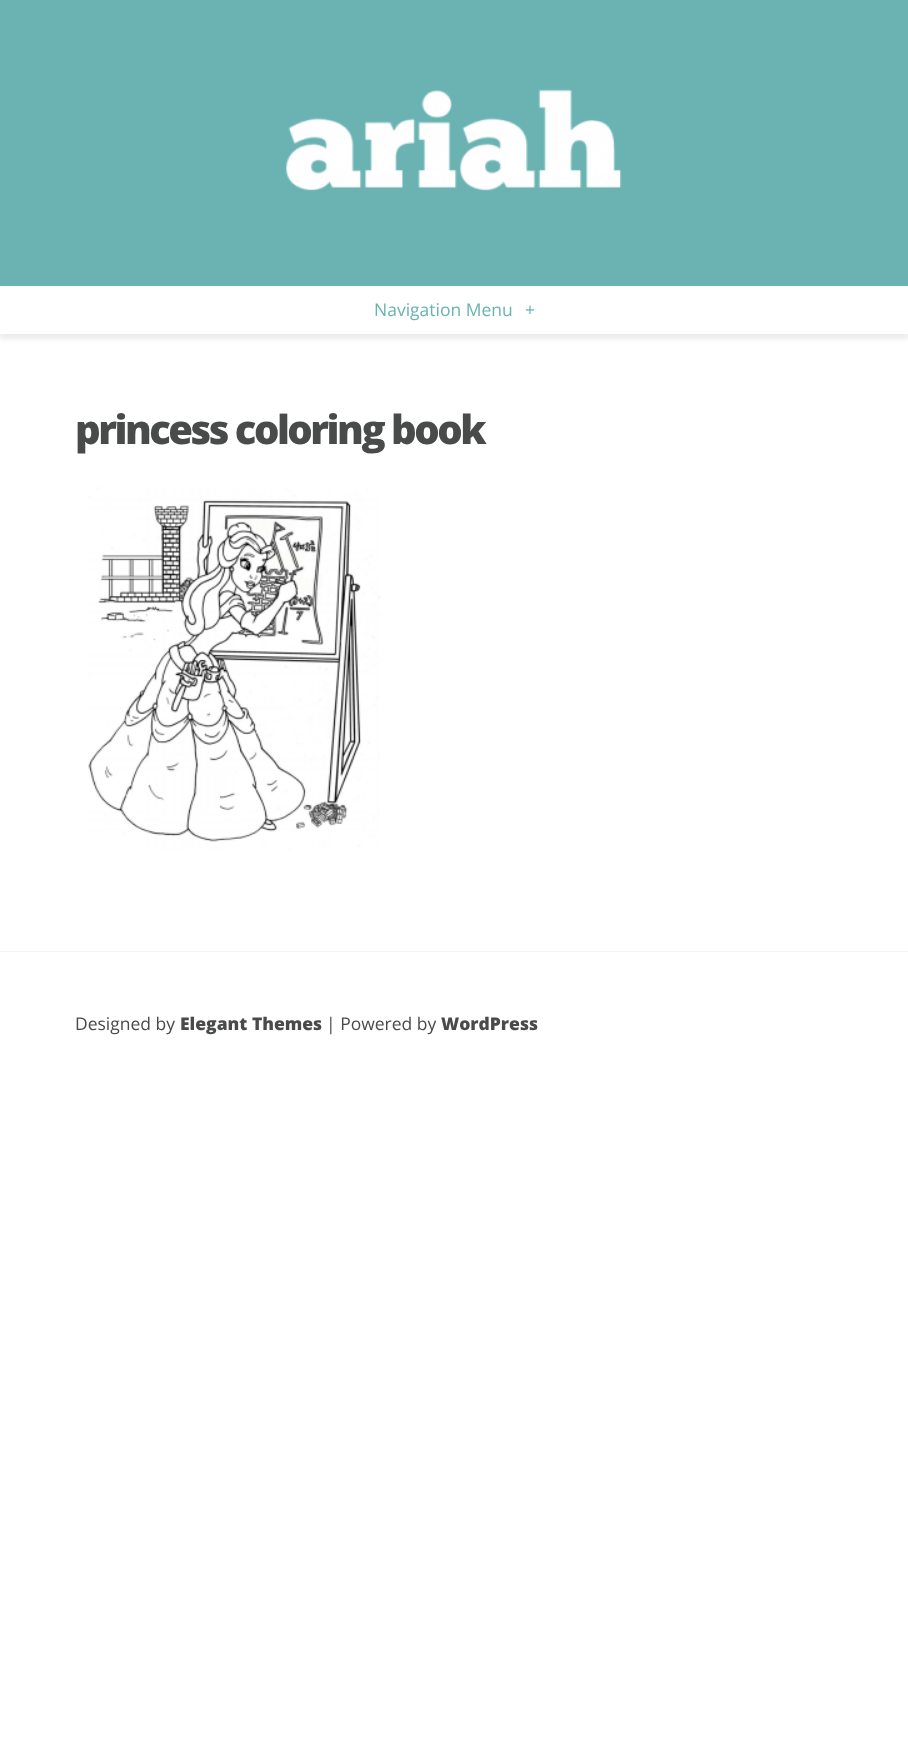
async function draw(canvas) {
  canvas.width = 908;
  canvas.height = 1758;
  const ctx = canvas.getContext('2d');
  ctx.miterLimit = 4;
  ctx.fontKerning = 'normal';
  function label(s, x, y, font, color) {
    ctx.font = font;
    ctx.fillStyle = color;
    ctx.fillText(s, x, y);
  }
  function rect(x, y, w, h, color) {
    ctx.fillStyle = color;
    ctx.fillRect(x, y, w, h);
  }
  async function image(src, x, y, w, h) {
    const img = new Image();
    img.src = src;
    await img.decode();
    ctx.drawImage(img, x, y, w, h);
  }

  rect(0, 0, 908, 1758, '#fff');
  ctx.fillStyle = '#00000014';
  ctx.filter = 'blur(2.5px)';
  ctx.beginPath();
  ctx.rect(0, 5, 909, 334);
  ctx.fill();
  ctx.filter = 'none';
  rect(0, 0, 908, 286, '#6ab3b2');
  await image('assets/img1.png', 286, 89, 336, 102);
  rect(0, 286, 908, 48, '#fff');
  label('Navigation Menu', 374, 316, '17.5px Open Sans', '#6ab3b2');
  label('+', 525, 316, '17.5px Open Sans', '#6ab3b2');
  ctx.letterSpacing = '-2.5px';
  label('princess coloring book', 75, 444, '800 40px Open Sans', '#494b4b');
  await image('assets/img2.png', 88, 487, 292, 364);
  rect(0, 951, 908, 1, '#f3f3f3');
  ctx.letterSpacing = '0px';
  label('Designed by', 75, 1030, '17.5px Open Sans', '#494b4b');
  label('Elegant Themes', 180, 1030, '800 17.5px Open Sans', '#494b4b');
  label('| Powered by', 326, 1030, '17.5px Open Sans', '#494b4b');
  label('WordPress', 441, 1030, '800 17.5px Open Sans', '#494b4b');
}

draw(document.querySelector('canvas'));
